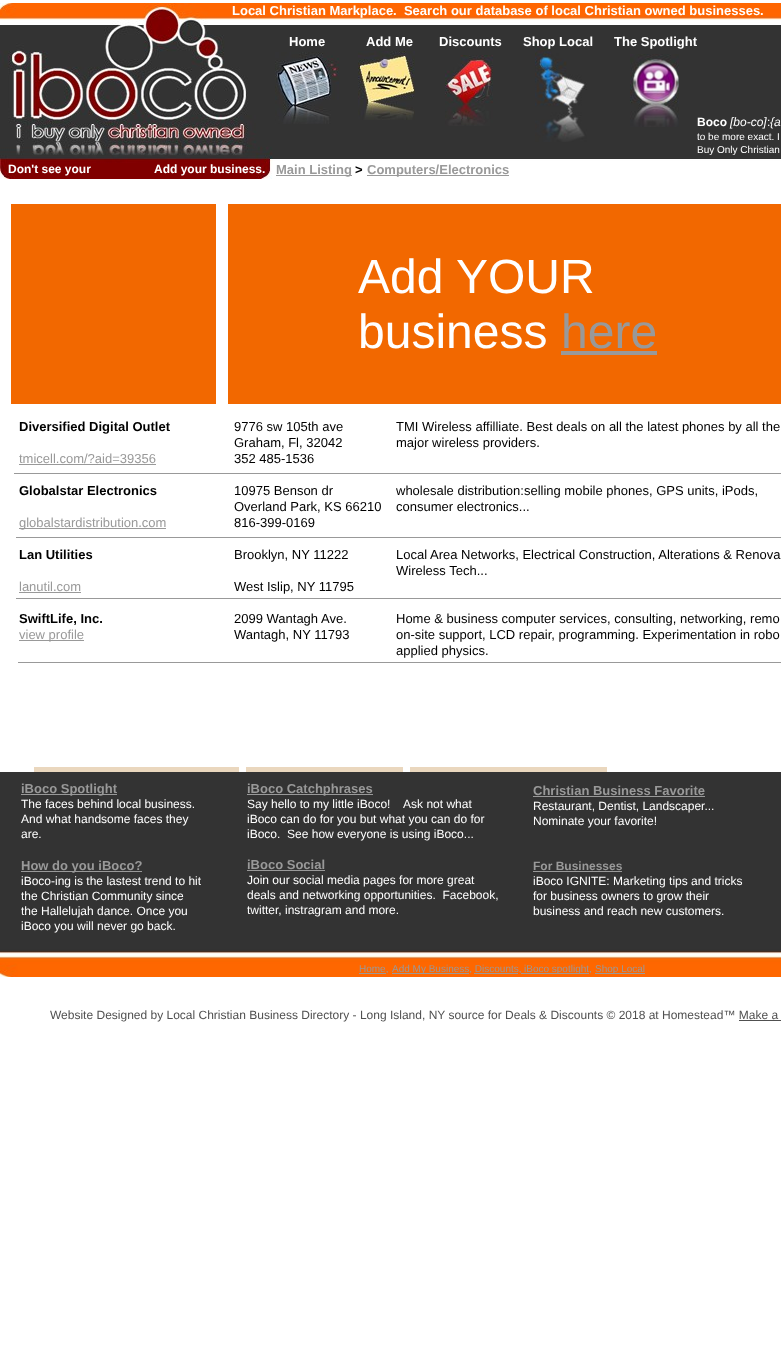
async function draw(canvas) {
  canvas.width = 781;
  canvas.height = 1352;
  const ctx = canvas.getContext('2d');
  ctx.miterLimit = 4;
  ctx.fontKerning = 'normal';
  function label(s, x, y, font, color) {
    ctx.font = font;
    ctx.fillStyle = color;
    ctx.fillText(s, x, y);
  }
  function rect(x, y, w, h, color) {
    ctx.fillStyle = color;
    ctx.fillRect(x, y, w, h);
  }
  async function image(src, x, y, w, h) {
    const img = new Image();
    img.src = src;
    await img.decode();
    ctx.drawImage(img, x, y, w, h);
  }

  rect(0, 0, 781, 1352, '#fff');
  await image('assets/img1.png', 0, 3, 781, 176);
  label('Local Christian Markplace.  Search our database of local Christian owned businesses.', 232, 15, 'bold 13px Liberation Sans', '#fff');
  label('Home', 289, 46, 'bold 13px Liberation Sans', '#fff');
  label('Add Me', 366, 46, 'bold 13px Liberation Sans', '#fff');
  label('Discounts', 439, 46, 'bold 13px Liberation Sans', '#fff');
  await image('assets/img5.png', 535, 44, 52, 98);
  label('Shop Local', 523, 46, 'bold 13px Liberation Sans', '#fff');
  label('The Spotlight', 614, 46, 'bold 13px Liberation Sans', '#fff');
  await image('assets/img2.png', 275, 52, 64, 72);
  await image('assets/img3.png', 358, 51, 57, 69);
  await image('assets/img4.png', 445, 55, 48, 71);
  await image('assets/img6.png', 630, 54, 49, 73);
  label('Boco', 697, 126, 'bold 12px Liberation Sans', '#fff');
  label('[bo-co] {a', 730, 126, 'italic 12px Liberation Sans', '#fff');
  label(':', 767, 126, '12px Liberation Sans', '#fff');
  label('to be more exact. I', 697, 140, '10px Liberation Sans', '#fff');
  label('Buy Only Christian', 697, 153, '10px Liberation Sans', '#fff');
  label('Don\'t see your', 8, 173, 'bold 12px Liberation Sans', '#fff');
  label('Add your business.', 154, 173, 'bold 12px Liberation Sans', '#fff');
  rect(276, 175, 76, 1, '#999');
  label('Main Listing', 276, 174, 'bold 13px Liberation Sans', '#999');
  label('>', 355, 174, 'bold 13px Liberation Sans', '#000');
  rect(367, 175, 142, 1, '#999');
  label('Computers/Electronics', 367, 174, 'bold 13px Liberation Sans', '#999');
  rect(11, 204, 205, 200, '#f26800');
  rect(228, 204, 553, 200, '#f26800');
  label('Add YOUR', 358, 293, '48px Liberation Sans', '#fff');
  label('business', 358, 348, '48px Liberation Sans', '#fff');
  label('here', 561, 348, '48px Liberation Sans', '#999');
  rect(561, 351, 96, 4, '#999');
  label('Diversified Digital Outlet', 19, 431, 'bold 13px Liberation Sans', '#000');
  label('tmicell.com/?aid=39356', 19, 463, '13px Liberation Sans', '#999');
  rect(19, 464, 137, 1, '#999');
  label('Globalstar Electronics', 19, 495, 'bold 13px Liberation Sans', '#000');
  rect(19, 528, 147, 1, '#999');
  label('globalstardistribution.com', 19, 527, '13px Liberation Sans', '#999');
  label('Lan Utilities', 19, 559, 'bold 13px Liberation Sans', '#000');
  label('lanutil.com', 19, 591, '13px Liberation Sans', '#999');
  rect(19, 592, 62, 1, '#999');
  label('SwiftLife, Inc.', 19, 623, 'bold 13px Liberation Sans', '#000');
  rect(19, 640, 65, 1, '#999');
  label('view profile', 19, 639, '13px Liberation Sans', '#999');
  label('9776 sw 105th ave', 234, 431, '13px Liberation Sans', '#000');
  label('Graham, Fl, 32042', 234, 447, '13px Liberation Sans', '#000');
  label('352 485-1536', 234, 463, '13px Liberation Sans', '#000');
  label('10975 Benson dr', 234, 495, '13px Liberation Sans', '#000');
  label('Overland Park, KS 66210', 234, 511, '13px Liberation Sans', '#000');
  label('816-399-0169', 234, 527, '13px Liberation Sans', '#000');
  label('Brooklyn, NY 11222', 234, 559, '13px Liberation Sans', '#000');
  label('West Islip, NY 11795', 234, 591, '13px Liberation Sans', '#000');
  label('2099 Wantagh Ave.', 234, 623, '13px Liberation Sans', '#000');
  label('Wantagh, NY 11793', 234, 639, '13px Liberation Sans', '#000');
  label('TMI Wireless affilliate. Best deals on all the latest phones by all the', 396, 431, '13px Liberation Sans', '#000');
  label('major wireless providers.', 396, 447, '13px Liberation Sans', '#000');
  label('wholesale distribution:selling mobile phones, GPS units, iPods,', 396, 495, '13px Liberation Sans', '#000');
  label('consumer electronics...', 396, 511, '13px Liberation Sans', '#000');
  label('Local Area Networks, Electrical Construction, Alterations & Renova', 396, 559, '13px Liberation Sans', '#000');
  label('Wireless Tech...', 396, 575, '13px Liberation Sans', '#000');
  label('Home & business computer services, consulting, networking, remo', 396, 623, '13px Liberation Sans', '#000');
  label('on-site support, LCD repair, programming. Experimentation in robo', 396, 639, '13px Liberation Sans', '#000');
  label('applied physics.', 396, 655, '13px Liberation Sans', '#000');
  rect(14, 473, 767, 1, '#999');
  rect(16, 537, 765, 1, '#999');
  rect(16, 598, 765, 1, '#999');
  rect(18, 662, 763, 1, '#999');
  rect(34, 767, 205, 5, '#ead7be');
  rect(246, 767, 157, 5, '#ead7be');
  rect(410, 767, 197, 5, '#ead7be');
  await image('assets/img7.png', 0, 772, 781, 205);
  rect(21, 794, 96, 1, '#999');
  label('iBoco Spotlight', 21, 793, 'bold 13px Liberation Sans', '#999');
  label('The faces behind local business.', 21, 808, '12px Liberation Sans', '#fff');
  label('And what handsome faces they', 21, 823, '12px Liberation Sans', '#fff');
  label('are.', 21, 838, '12px Liberation Sans', '#fff');
  rect(21, 871, 121, 1, '#999');
  label('How do you iBoco?', 21, 870, 'bold 13px Liberation Sans', '#999');
  label('iBoco-ing is the lastest trend to hit', 21, 885, '12px Liberation Sans', '#fff');
  label('the Christian Community since', 21, 900, '12px Liberation Sans', '#fff');
  label('the Hallelujah dance. Once you', 21, 915, '12px Liberation Sans', '#fff');
  label('iBoco you will never go back.', 21, 930, '12px Liberation Sans', '#fff');
  rect(247, 794, 126, 1, '#999');
  label('iBoco Catchphrases', 247, 793, 'bold 13px Liberation Sans', '#999');
  label('Say hello to my little iBoco!    Ask not what', 247, 808, '12px Liberation Sans', '#fff');
  label('iBoco can do for you but what you can do for', 247, 823, '12px Liberation Sans', '#fff');
  label('iBoco.  See how everyone is using iBoco...', 247, 838, '12px Liberation Sans', '#fff');
  label('iBoco Social', 247, 869, 'bold 13px Liberation Sans', '#999');
  rect(247, 870, 78, 1, '#999');
  label('Join our social media pages for more great', 247, 884, '12px Liberation Sans', '#fff');
  label('deals and networking opportunities.  Facebook,', 247, 899, '12px Liberation Sans', '#fff');
  label('twitter, instragram and more.', 247, 914, '12px Liberation Sans', '#fff');
  label('Christian Business Favorite', 533, 795, 'bold 13px Liberation Sans', '#999');
  rect(533, 796, 172, 1, '#999');
  label('Restaurant, Dentist, Landscaper...', 533, 810, '12px Liberation Sans', '#fff');
  label('Nominate your favorite!', 533, 825, '12px Liberation Sans', '#fff');
  label('For Businesses', 533, 870, 'bold 12px Liberation Sans', '#999');
  rect(533, 871, 89, 1, '#999');
  label('iBoco IGNITE: Marketing tips and tricks', 533, 885, '12px Liberation Sans', '#fff');
  label('for business owners to grow their', 533, 900, '12px Liberation Sans', '#fff');
  label('business and reach new customers.', 533, 915, '12px Liberation Sans', '#fff');
  rect(359, 973, 27, 1, '#999');
  label('Home,', 359, 972, '10px Liberation Sans', '#999');
  rect(392, 973, 77, 1, '#999');
  label('Add My Business, Discounts,', 392, 972, '10px Liberation Sans', '#999');
  rect(521, 973, 68, 1, '#999');
  label('iBoco spotlight,', 524, 972, '10px Liberation Sans', '#999');
  rect(595, 973, 50, 1, '#999');
  label('Shop Local', 595, 972, '10px Liberation Sans', '#999');
  rect(474, 973, 44, 1, '#999');
  label('Website Designed by Local Christian Business Directory - Long Island, NY source for Deals & Discounts © 2018 at Homestead™ Make a', 50, 1019, '12px Liberation Sans', '#505050');
  rect(739, 1020, 42, 1, '#505050');
}

draw(document.querySelector('canvas'));
